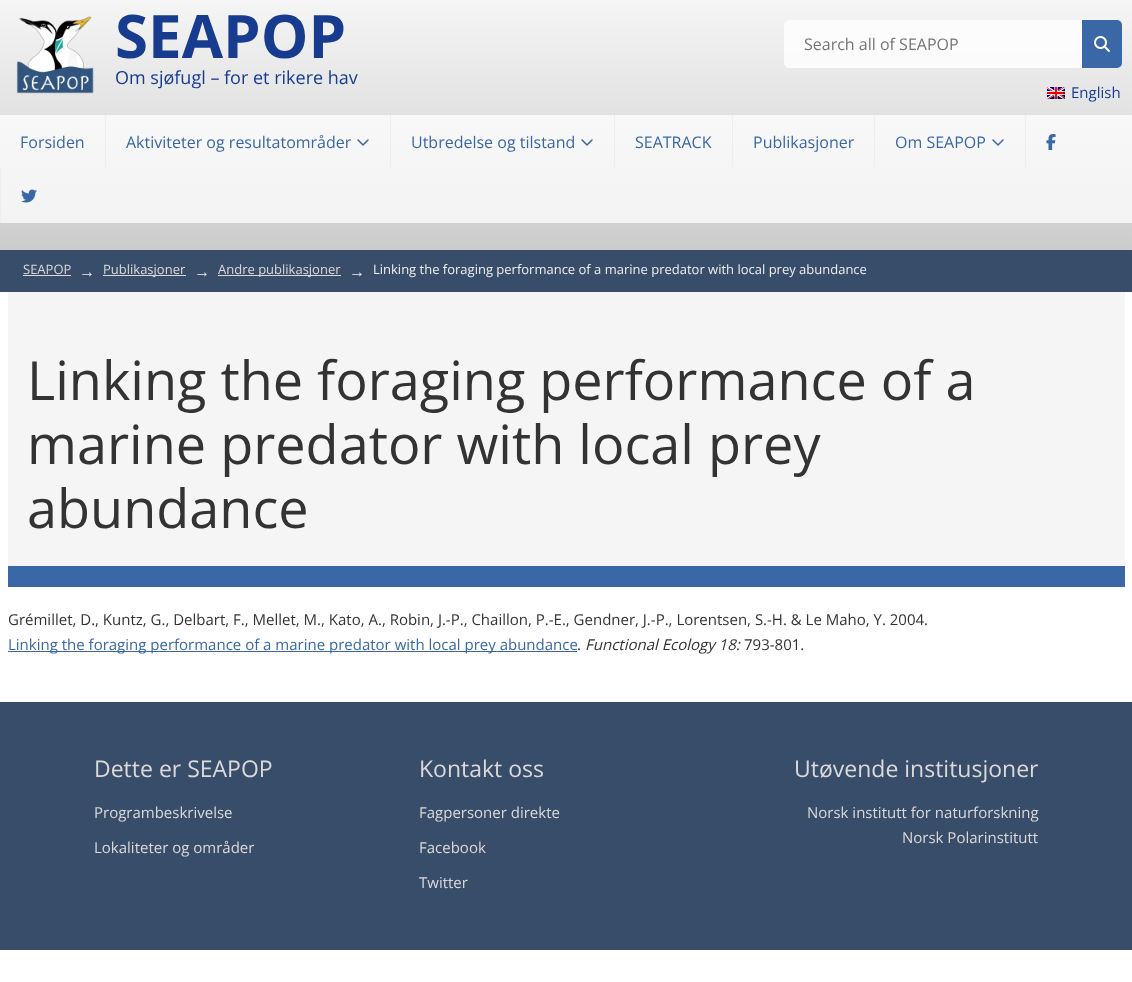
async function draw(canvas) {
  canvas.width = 1132;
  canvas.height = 982;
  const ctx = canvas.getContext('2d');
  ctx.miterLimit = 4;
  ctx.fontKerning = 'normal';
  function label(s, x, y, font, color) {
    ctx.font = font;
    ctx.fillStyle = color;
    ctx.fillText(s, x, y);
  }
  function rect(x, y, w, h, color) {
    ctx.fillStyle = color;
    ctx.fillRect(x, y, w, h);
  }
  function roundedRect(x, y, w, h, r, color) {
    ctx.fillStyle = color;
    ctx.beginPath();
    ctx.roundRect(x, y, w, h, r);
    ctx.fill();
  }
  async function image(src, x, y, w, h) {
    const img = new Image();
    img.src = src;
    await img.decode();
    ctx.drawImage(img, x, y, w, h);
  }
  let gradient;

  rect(0, 0, 1132, 982, '#fff');
  gradient = ctx.createLinearGradient(566, 0, 566, 250);
  gradient.addColorStop(0, '#f5f5f5');
  gradient.addColorStop(1, '#ccc');
  ctx.fillStyle = gradient;
  ctx.fillRect(0, 0, 1132, 250);
  gradient = ctx.createLinearGradient(566, 0, 566, 250);
  gradient.addColorStop(0, '#fdfdfd');
  gradient.addColorStop(1, '#f2f2f2');
  ctx.fillStyle = gradient;
  ctx.fillRect(0, 115, 1132, 108);
  await image('assets/img1.png', 16, 16, 78, 78);
  label('SEAPOP', 115, 58, 'bold 60px Open Sans', '#173b8f');
  label('Om sjøfugl – for et rikere hav', 115, 84, '18px Open Sans', '#173b8f');
  roundedRect(784, 20, 300, 48, 5, '#ffffffcc');
  label('Search all of SEAPOP', 804, 50, '16px Open Sans', '#757575');
  ctx.fillStyle = '#3a68a6';
  ctx.beginPath();
  ctx.roundRect(1082, 20, 40, 48, [0, 5, 5, 0]);
  ctx.fill();
  await image('assets/img2.png', 1094, 36, 16, 16);
  await image('assets/img3.png', 1047, 87, 18, 12);
  label('English', 1071, 98, '15px Open Sans', '#173b8f');
  label('Forsiden', 20, 148, '16px Open Sans', '#3a68a6');
  rect(105, 115, 1, 54, '#eee');
  label('Aktiviteter og resultatområder', 126, 148, '16px Open Sans', '#3a68a6');
  await image('assets/img4.png', 357, 139, 12, 7);
  rect(390, 115, 1, 54, '#eee');
  label('Utbredelse og tilstand', 411, 148, '16px Open Sans', '#3a68a6');
  await image('assets/img4.png', 581, 139, 12, 7);
  rect(614, 115, 1, 54, '#eee');
  label('SEATRACK', 635, 148, '16px Open Sans', '#3a68a6');
  rect(732, 115, 1, 54, '#eee');
  label('Publikasjoner', 753, 148, '16px Open Sans', '#3a68a6');
  rect(874, 115, 1, 54, '#eee');
  label('Om SEAPOP', 895, 148, '16px Open Sans', '#3a68a6');
  await image('assets/img4.png', 992, 139, 12, 7);
  rect(1025, 115, 1, 54, '#eee');
  await image('assets/img5.png', 1046, 134, 10, 16);
  rect(0, 169, 1, 54, '#eee');
  await image('assets/img6.png', 21, 189, 16, 14);
  rect(0, 250, 1132, 42, '#384d6a');
  label('SEAPOP', 23, 274, '13px Open Sans', '#dcd9d9');
  rect(23, 275, 48, 1, '#dcd9d9');
  label('→', 79, 277, '16px Liberation Sans', '#eee');
  rect(103, 275, 83, 1, '#dcd9d9');
  label('Publikasjoner', 103, 274, '13px Open Sans', '#dcd9d9');
  label('→', 194, 277, '16px Liberation Sans', '#eee');
  rect(218, 275, 123, 1, '#dcd9d9');
  label('Andre publikasjoner', 218, 274, '13px Open Sans', '#dcd9d9');
  label('→', 349, 277, '16px Liberation Sans', '#eee');
  label('Linking the foraging performance of a marine predator with local prey abundance', 373, 274, '13px Open Sans', '#eee');
  rect(8, 292, 1117, 274, '#f5f5f5');
  rect(8, 566, 1117, 21, '#3a68a6');
  label('Linking the foraging performance of a', 27, 400, '54px Open Sans', '#333');
  label('marine predator with local prey', 27, 464, '54px Open Sans', '#333');
  label('abundance', 27, 528, '54px Open Sans', '#333');
  label('Grémillet, D., Kuntz, G., Delbart, F., Mellet, M., Kato, A., Robin, J.-P., Chaillon, P.-E., Gendner, J.-P., Lorentsen, S.-H. & Le Maho, Y. 2004.', 8, 625, '15px Open Sans', '#333');
  rect(8, 651, 569, 1, '#3a68a6');
  label('Linking the foraging performance of a marine predator with local prey abundance', 8, 650, '15px Open Sans', '#3a68a6');
  label('.', 577, 650, '15px Open Sans', '#333');
  label('Functional Ecology 18:', 585, 650, 'italic 15px Open Sans', '#333');
  label('793-801.', 744, 650, '15px Open Sans', '#333');
  rect(0, 702, 1132, 248, '#384d6a');
  label('Dette er SEAPOP', 94, 777, '23px Open Sans', '#dcd9d9');
  label('Programbeskrivelse', 94, 818, '15px Open Sans', '#dcd9d9');
  label('Lokaliteter og områder', 94, 853, '15px Open Sans', '#dcd9d9');
  label('Kontakt oss', 419, 777, '23px Open Sans', '#dcd9d9');
  label('Fagpersoner direkte', 419, 818, '15px Open Sans', '#dcd9d9');
  label('Facebook', 419, 853, '15px Open Sans', '#dcd9d9');
  label('Twitter', 419, 888, '15px Open Sans', '#dcd9d9');
  label('Utøvende institusjoner', 794, 777, '23px Open Sans', '#dcd9d9');
  label('Norsk institutt for naturforskning', 807, 818, '15px Open Sans', '#dcd9d9');
  label('Norsk Polarinstitutt', 902, 843, '15px Open Sans', '#dcd9d9');
}

draw(document.querySelector('canvas'));
